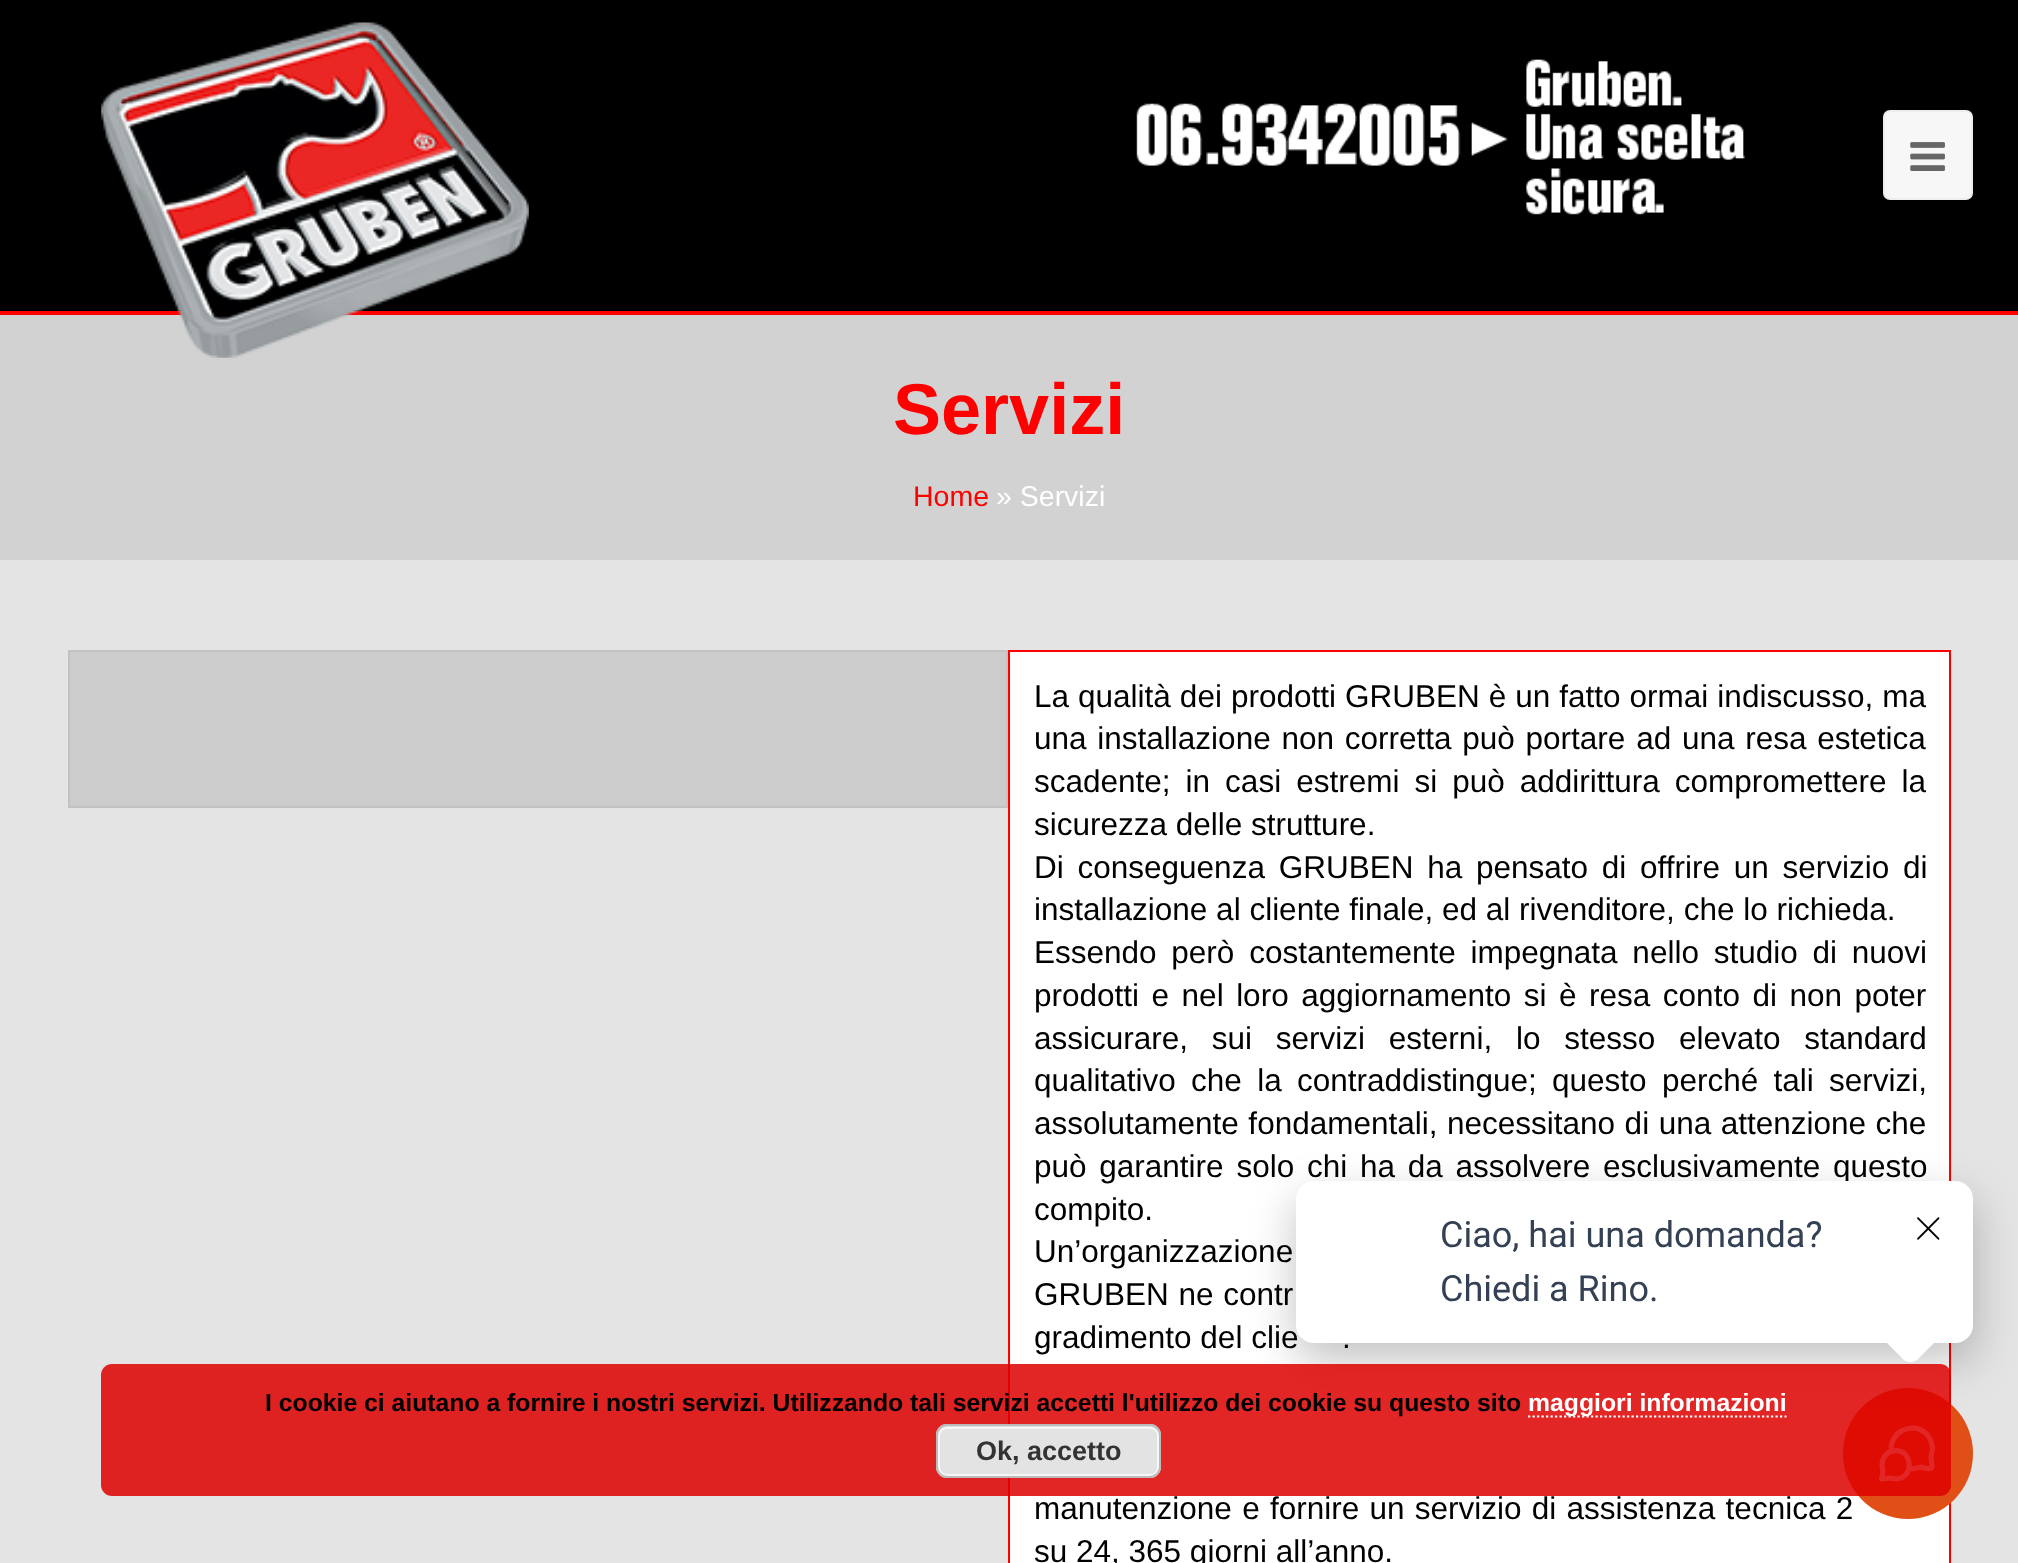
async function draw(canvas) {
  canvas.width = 2018;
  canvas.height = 1563;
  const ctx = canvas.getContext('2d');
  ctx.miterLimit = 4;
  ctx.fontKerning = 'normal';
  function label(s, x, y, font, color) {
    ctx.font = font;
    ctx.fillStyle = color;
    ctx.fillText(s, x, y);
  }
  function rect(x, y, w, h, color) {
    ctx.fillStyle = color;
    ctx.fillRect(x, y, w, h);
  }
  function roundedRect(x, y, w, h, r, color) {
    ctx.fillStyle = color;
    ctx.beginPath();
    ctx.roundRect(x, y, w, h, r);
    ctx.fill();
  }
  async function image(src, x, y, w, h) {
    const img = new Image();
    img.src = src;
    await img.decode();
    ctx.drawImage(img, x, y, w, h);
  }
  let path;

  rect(0, 0, 2018, 1563, '#e4e4e4');
  rect(0, 0, 2018, 311, '#000');
  rect(0, 311, 2018, 4, '#f00');
  rect(0, 315, 2018, 245, '#d2d2d2');
  await image('assets/img1.png', 101, 22, 428, 336);
  ctx.fillStyle = '#f7f7f7';
  ctx.beginPath();
  ctx.roundRect(1884, 111, 88, 88, 6);
  ctx.fill();
  ctx.strokeStyle = '#eee';
  ctx.lineWidth = 2;
  ctx.stroke();
  await image('assets/img2.png', 1910, 142, 35, 29);
  await image('assets/img3.png', 1136, 59, 609, 156);
  label('Servizi', 893, 434, 'bold 72px Liberation Sans', '#f00');
  label('Home', 913, 506, '28.5px Liberation Sans', '#f00');
  label('» Servizi', 996, 506, '28.5px Liberation Sans', '#fff');
  ctx.fillStyle = '#ccc';
  ctx.beginPath();
  ctx.rect(69, 651, 938, 156);
  ctx.fill();
  ctx.strokeStyle = '#c2c2c2';
  ctx.stroke();
  ctx.fillStyle = '#fff';
  ctx.beginPath();
  ctx.rect(1009, 651, 941, 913);
  ctx.fill();
  ctx.strokeStyle = '#f00';
  ctx.stroke();
  ctx.wordSpacing = '0.25px';
  label('La qualità dei prodotti GRUBEN è un fatto ormai indiscusso, ma', 1034, 707, '31.5px Liberation Sans', '#000');
  ctx.wordSpacing = '2px';
  label('una installazione non corretta può portare ad una resa estetica', 1034, 749, '31.5px Liberation Sans', '#000');
  ctx.wordSpacing = '6.25px';
  label('scadente; in casi estremi si può addirittura compromettere la', 1034, 792, '31.5px Liberation Sans', '#000');
  ctx.wordSpacing = '0px';
  label('sicurezza delle strutture.', 1034, 835, '31.5px Liberation Sans', '#000');
  ctx.wordSpacing = '5px';
  label('Di conseguenza GRUBEN ha pensato di offrire un servizio di', 1034, 878, '31.5px Liberation Sans', '#000');
  ctx.wordSpacing = '0px';
  label('installazione al cliente finale, ed al rivenditore, che lo richieda.', 1034, 920, '31.5px Liberation Sans', '#000');
  ctx.wordSpacing = '6px';
  label('Essendo però costantemente impegnata nello studio di nuovi', 1034, 963, '31.5px Liberation Sans', '#000');
  ctx.wordSpacing = '3.75px';
  label('prodotti e nel loro aggiornamento si è resa conto di non poter', 1034, 1006, '31.5px Liberation Sans', '#000');
  ctx.wordSpacing = '15px';
  label('assicurare, sui servizi esterni, lo stesso elevato standard', 1034, 1049, '31.5px Liberation Sans', '#000');
  ctx.wordSpacing = '6.5px';
  label('qualitativo che la contraddistingue; questo perché tali servizi,', 1034, 1091, '31.5px Liberation Sans', '#000');
  ctx.wordSpacing = '0.75px';
  label('assolutamente fondamentali, necessitano di una attenzione che', 1034, 1134, '31.5px Liberation Sans', '#000');
  ctx.wordSpacing = '4px';
  label('può garantire solo chi ha da assolvere esclusivamente questo', 1034, 1177, '31.5px Liberation Sans', '#000');
  ctx.wordSpacing = '0px';
  label('compito.', 1034, 1220, '31.5px Liberation Sans', '#000');
  ctx.wordSpacing = '6px';
  label('Un’organizzazione', 1034, 1262, '31.5px Liberation Sans', '#000');
  ctx.wordSpacing = '1px';
  label('GRUBEN ne contr', 1034, 1305, '31.5px Liberation Sans', '#000');
  ctx.wordSpacing = '0px';
  label('gradimento del clie', 1034, 1348, '31.5px Liberation Sans', '#000');
  label('.', 1342, 1348, '31.5px Liberation Sans', '#000');
  ctx.wordSpacing = '1.5px';
  label('manutenzione e fornire un servizio di assistenza tecnica 2', 1034, 1519, '31.5px Liberation Sans', '#000');
  ctx.wordSpacing = '0px';
  label('su 24, 365 giorni all’anno.', 1034, 1562, '31.5px Liberation Sans', '#000');
  roundedRect(1843, 1388, 130, 131, 65, '#e04f16');
  path = new Path2D('M1891.5 1451.5C1888.5 1432.5 1912.5 1420 1926.5 1434C1930.5 1438 1932 1443 1932.5 1448.5C1932.5 1451.5 1931 1454 1931 1456.5L1932 1466.5L1931.5 1468C1930 1469.5 1922.5 1467.5 1921 1467L1916.5 1468C1914 1469 1911.5 1469 1909 1468.5M1895.5 1479C1915.5 1479 1912.5 1447 1893 1451C1888.5 1452 1884.5 1455.5 1883 1459.5C1882 1462.5 1881.5 1465.5 1882.5 1468.5L1883 1471L1881.5 1479L1890.5 1478Z');
  ctx.strokeStyle = '#fff';
  ctx.lineWidth = 5.1;
  ctx.lineCap = 'round';
  ctx.lineJoin = 'round';
  ctx.stroke(path);
  ctx.fillStyle = '#0000003d';
  ctx.filter = 'blur(22.5px)';
  ctx.beginPath();
  ctx.roundRect(1296, 1199, 677, 162, 18);
  ctx.fill();
  ctx.filter = 'none';
  roundedRect(101, 1364, 1850, 132, 11, '#dd0000d9');
  label('I cookie ci aiutano a fornire i nostri servizi. Utilizzando tali servizi accetti l\'utilizzo dei cookie su questo sito', 265, 1411, 'bold 24.75px Liberation Sans', '#000');
  path = new Path2D('M1528 1416.5H1786.5');
  ctx.lineWidth = 2.2;
  ctx.lineCap = 'butt';
  ctx.lineJoin = 'miter';
  ctx.setLineDash([2.25, 2.25]);
  ctx.stroke(path);
  label('maggiori informazioni', 1528, 1411, 'bold 24.75px Liberation Sans', '#fff');
  roundedRect(936, 1424, 225, 54, 11, '#e3e3e3');
  ctx.beginPath();
  ctx.roundRect(939, 1428, 219, 47, 8);
  ctx.strokeStyle = '#f6f6f6';
  ctx.lineWidth = 2;
  ctx.setLineDash([]);
  ctx.stroke();
  ctx.beginPath();
  ctx.roundRect(937, 1425, 223, 52, 10);
  ctx.strokeStyle = '#bbb';
  ctx.stroke();
  label('Ok, accetto', 976, 1460, 'bold 27px Liberation Sans', '#333');
  roundedRect(1296, 1181, 677, 162, 18, '#fff');
  label('Ciao, hai una domanda?', 1440, 1247, '36px Roboto', '#344054');
  label('Chiedi a Rino.', 1440, 1301, '36px Roboto', '#344054');
  ctx.fillStyle = '#fff';
  path = new Path2D('M1917 1309L1936 1328C1939 1331 1939 1337 1936 1341L1917 1360C1913 1363 1907 1363 1904 1360L1885 1341C1881 1337 1881 1331 1885 1328L1904 1309C1907 1305 1913 1305 1917 1309Z');
  ctx.fill(path);
  await image('assets/img4.png', 1917, 1217, 23, 23);
}

draw(document.querySelector('canvas'));
